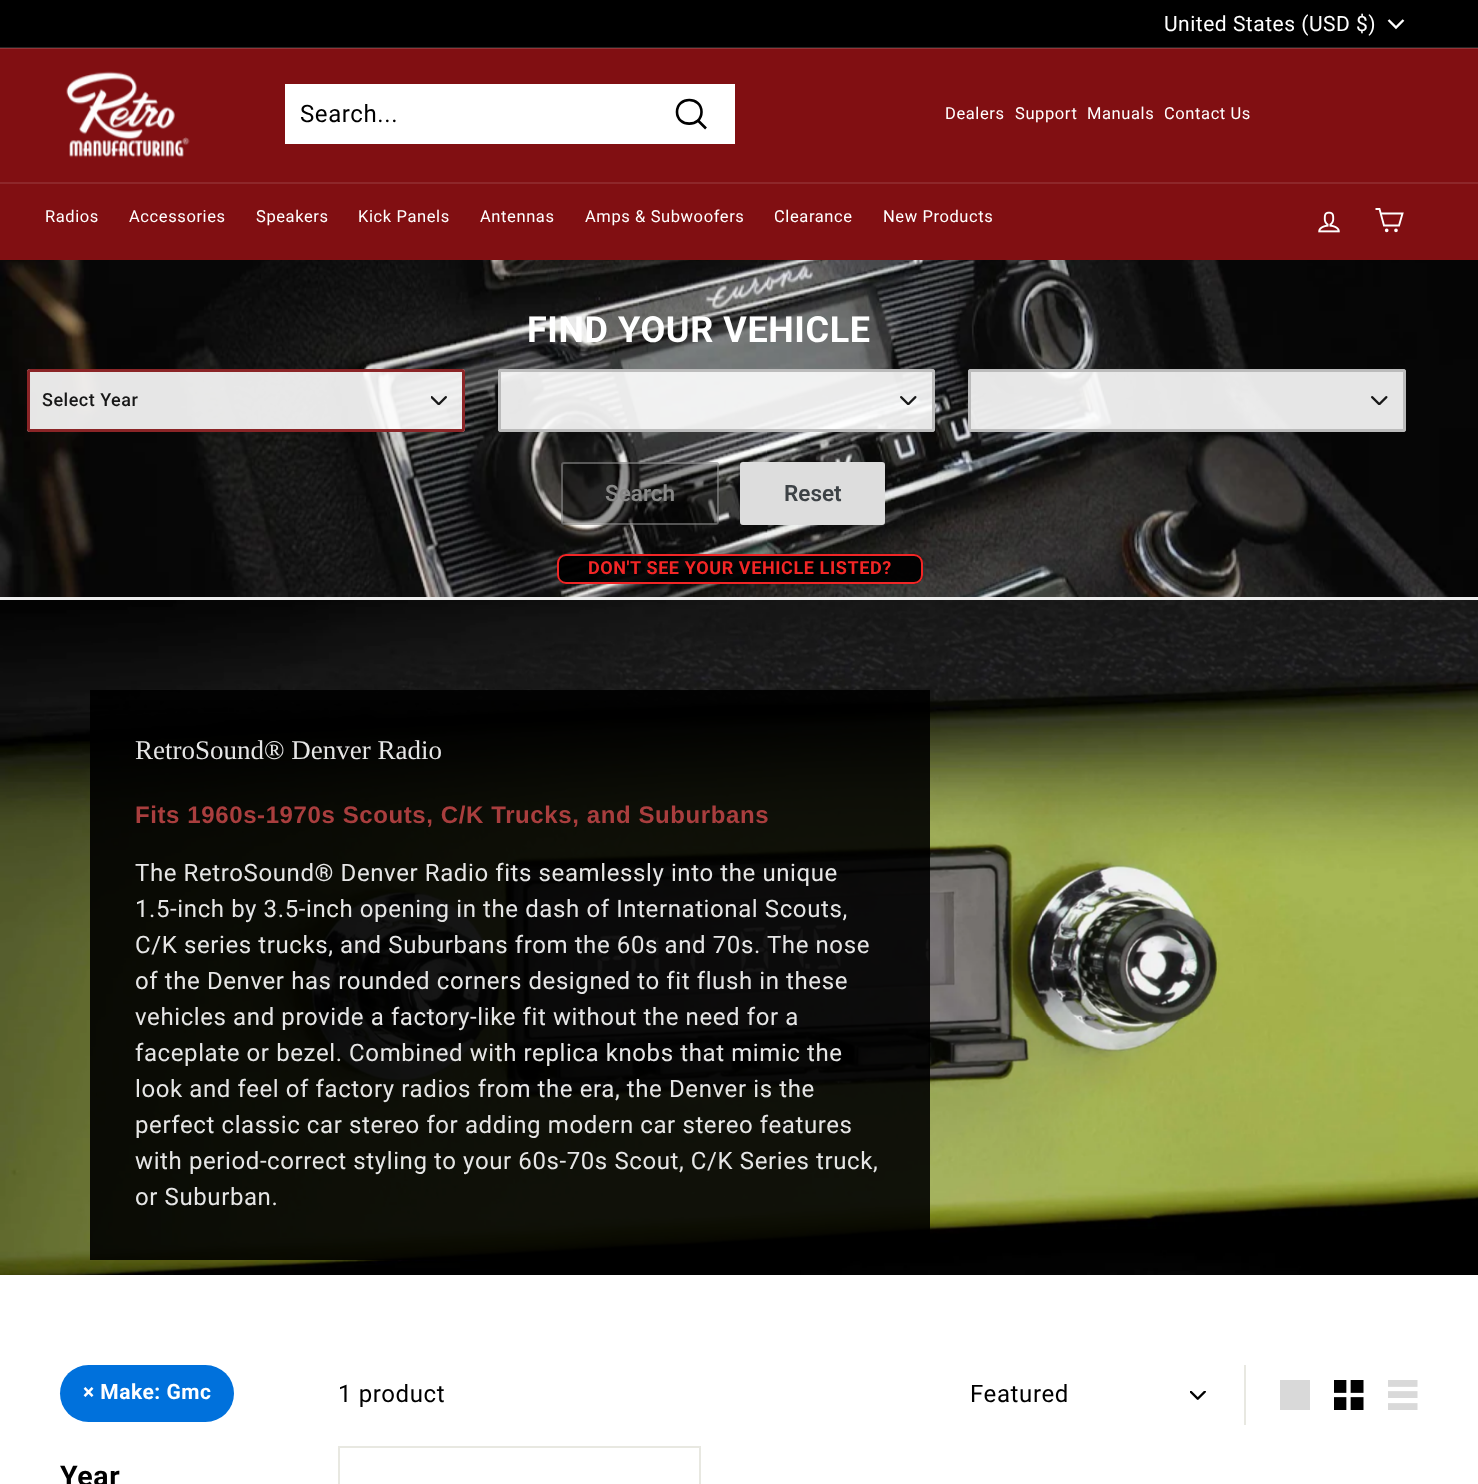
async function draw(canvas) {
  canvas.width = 1478;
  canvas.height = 1484;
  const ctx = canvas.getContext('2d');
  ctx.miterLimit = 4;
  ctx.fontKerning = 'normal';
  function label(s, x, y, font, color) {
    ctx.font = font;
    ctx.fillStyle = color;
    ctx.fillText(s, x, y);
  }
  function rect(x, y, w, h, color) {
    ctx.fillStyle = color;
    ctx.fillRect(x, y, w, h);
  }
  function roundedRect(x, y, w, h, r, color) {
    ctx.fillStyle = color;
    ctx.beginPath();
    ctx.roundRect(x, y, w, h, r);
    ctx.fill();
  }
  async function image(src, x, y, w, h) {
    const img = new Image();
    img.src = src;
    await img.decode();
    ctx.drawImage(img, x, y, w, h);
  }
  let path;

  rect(0, 0, 1478, 1484, '#fff');
  rect(0, 0, 1478, 47, '#000');
  rect(0, 47, 1478, 1, '#262626');
  ctx.letterSpacing = '0.5px';
  label('United States (USD $)', 1164, 31, '21px Roboto', '#fff');
  path = new Path2D('M1388.5 20L1396 27.5L1403.5 20');
  ctx.strokeStyle = '#fff';
  ctx.lineWidth = 2.4;
  ctx.stroke(path);
  rect(0, 49, 1478, 133, '#810f12');
  rect(0, 48, 1478, 1, '#943336');
  await image('assets/img1.png', 66, 71, 124, 87);
  rect(285, 84, 450, 60, '#fff');
  ctx.letterSpacing = '0.6px';
  label('Search...', 300, 122, '24px Roboto', '#000');
  path = new Path2D('M701.5 112C701.5 127.5 677 127.5 677 112C677 96 701.5 96 701.5 112ZM706 128.5L698 120.5');
  ctx.strokeStyle = '#000';
  ctx.lineWidth = 2.6;
  ctx.stroke(path);
  label('Dealers', 945, 119, '16.5px Roboto', '#fff');
  label('Support', 1015, 119, '16.5px Roboto', '#fff');
  label('Manuals', 1087, 119, '16.5px Roboto', '#fff');
  label('Contact Us', 1164, 119, '16.5px Roboto', '#fff');
  rect(0, 184, 1478, 76, '#810f12');
  rect(0, 182, 1478, 2, '#8e272a');
  label('Radios', 45, 222, '16.5px Roboto', '#fff');
  label('Accessories', 129, 222, '16.5px Roboto', '#fff');
  label('Speakers', 256, 222, '16.5px Roboto', '#fff');
  label('Kick Panels', 358, 222, '16.5px Roboto', '#fff');
  label('Antennas', 480, 222, '16.5px Roboto', '#fff');
  label('Amps & Subwoofers', 585, 222, '16.5px Roboto', '#fff');
  label('Clearance', 774, 222, '16.5px Roboto', '#fff');
  label('New Products', 883, 222, '16.5px Roboto', '#fff');
  await image('assets/img2.png', 1318, 211, 22, 22);
  path = new Path2D('M1380.5 213.5H1402.5L1399 225.5H1384L1379.5 209H1375.5');
  ctx.strokeStyle = '#fff';
  ctx.lineWidth = 1.9;
  ctx.stroke(path);
  ctx.beginPath();
  ctx.arc(1386.7, 230.3, 0.9, 0, 2 * Math.PI);
  ctx.stroke();
  ctx.beginPath();
  ctx.arc(1396, 230.3, 0.9, 0, 2 * Math.PI);
  ctx.stroke();
  await image('assets/img3.png', 0, 260, 1478, 337);
  rect(0, 597, 1478, 3, '#eee');
  label('FIND YOUR VEHICLE', 527, 342, 'bold 36px Roboto', '#fff');
  roundedRect(27, 369, 438, 63, 3, '#ffffffe6');
  await image('assets/img4.png', 431, 396, 16, 9);
  ctx.beginPath();
  ctx.roundRect(28.5, 370.5, 435, 60, 1.5);
  ctx.strokeStyle = '#810f12e6';
  ctx.lineWidth = 3;
  ctx.stroke();
  ctx.letterSpacing = '0.5px';
  label('Select Year', 42, 406, '500 18px Roboto', '#171717');
  roundedRect(498, 369, 437, 63, 3, '#ffffffe6');
  await image('assets/img5.png', 900, 396, 17, 9);
  ctx.beginPath();
  ctx.roundRect(499.5, 370.5, 434, 60, 1.5);
  ctx.strokeStyle = '#b6b6b6e6';
  ctx.stroke();
  roundedRect(968, 369, 438, 63, 3, '#ffffffe6');
  await image('assets/img6.png', 1371, 396, 17, 9);
  ctx.beginPath();
  ctx.roundRect(969.5, 370.5, 435, 60, 1.5);
  ctx.stroke();
  roundedRect(561, 462, 158, 63, 3, '#00000066');
  ctx.beginPath();
  ctx.roundRect(562, 463, 156, 61, 2);
  ctx.strokeStyle = '#cccccc66';
  ctx.lineWidth = 2;
  ctx.stroke();
  ctx.letterSpacing = '0px';
  label('Search', 605, 501, '600 22.5px Roboto', '#898988');
  ctx.fillStyle = '#ddd';
  ctx.beginPath();
  ctx.roundRect(741, 463, 143, 61, 2);
  ctx.fill();
  ctx.strokeStyle = '#ddd';
  ctx.stroke();
  label('Reset', 784, 501, '600 22.5px Roboto', '#3d4246');
  roundedRect(557, 554, 366, 30, 9, '#000000f2');
  ctx.beginPath();
  ctx.roundRect(558, 555, 364, 28, 8);
  ctx.strokeStyle = '#ff2828f2';
  ctx.stroke();
  ctx.letterSpacing = '0.6px';
  label('DON\'T SEE YOUR VEHICLE LISTED?', 588, 574, 'bold 18px Roboto', '#f22626');
  await image('assets/img7.png', 0, 600, 1478, 675);
  rect(90, 690, 840, 570, '#000000e6');
  ctx.letterSpacing = '0px';
  label('RetroSound® Denver Radio', 135, 759, '27px Liberation Serif', '#e6e6e6');
  ctx.letterSpacing = '0.6px';
  label('Fits 1960s-1970s Scouts, C/K Trucks, and Suburbans', 135, 823, 'bold 24px Liberation Sans', '#a93e3e');
  label('The RetroSound® Denver Radio fits seamlessly into the unique', 135, 881, '24px Roboto', '#e6e6e6');
  label('1.5-inch by 3.5-inch opening in the dash of International Scouts,', 135, 917, '24px Roboto', '#e6e6e6');
  label('C/K series trucks, and Suburbans from the 60s and 70s. The nose', 135, 953, '24px Roboto', '#e6e6e6');
  label('of the Denver has rounded corners designed to fit flush in these', 135, 989, '24px Roboto', '#e6e6e6');
  label('vehicles and provide a factory-like fit without the need for a', 135, 1025, '24px Roboto', '#e6e6e6');
  label('faceplate or bezel. Combined with replica knobs that mimic the', 135, 1061, '24px Roboto', '#e6e6e6');
  label('look and feel of factory radios from the era, the Denver is the', 135, 1097, '24px Roboto', '#e6e6e6');
  label('perfect classic car stereo for adding modern car stereo features', 135, 1133, '24px Roboto', '#e6e6e6');
  label('with period-correct styling to your 60s-70s Scout, C/K Series truck,', 135, 1169, '24px Roboto', '#e6e6e6');
  label('or Suburban.', 135, 1205, '24px Roboto', '#e6e6e6');
  roundedRect(60, 1365, 174, 57, 28.5, '#0071dc');
  ctx.letterSpacing = '0.5px';
  label('× Make: Gmc', 83, 1399, 'bold 21px Roboto', '#fff');
  ctx.letterSpacing = '0.6px';
  label('Year', 60, 1486, 'bold 28.5px Roboto', '#000');
  label('1 product', 338, 1402, '24px Roboto', '#000');
  rect(1244, 1365, 2, 60, '#e8e8e1');
  await image('assets/img8.png', 1190, 1391, 16, 9);
  label('Featured', 970, 1402, '24px Roboto', '#000');
  rect(1280, 1380, 30, 30, '#d9d9d9');
  await image('assets/img9.png', 1334, 1380, 30, 30);
  await image('assets/img10.png', 1388, 1380, 30, 30);
  ctx.strokeStyle = '#e8e8e1';
  ctx.strokeRect(339, 1447, 361, 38);
}

draw(document.querySelector('canvas'));
